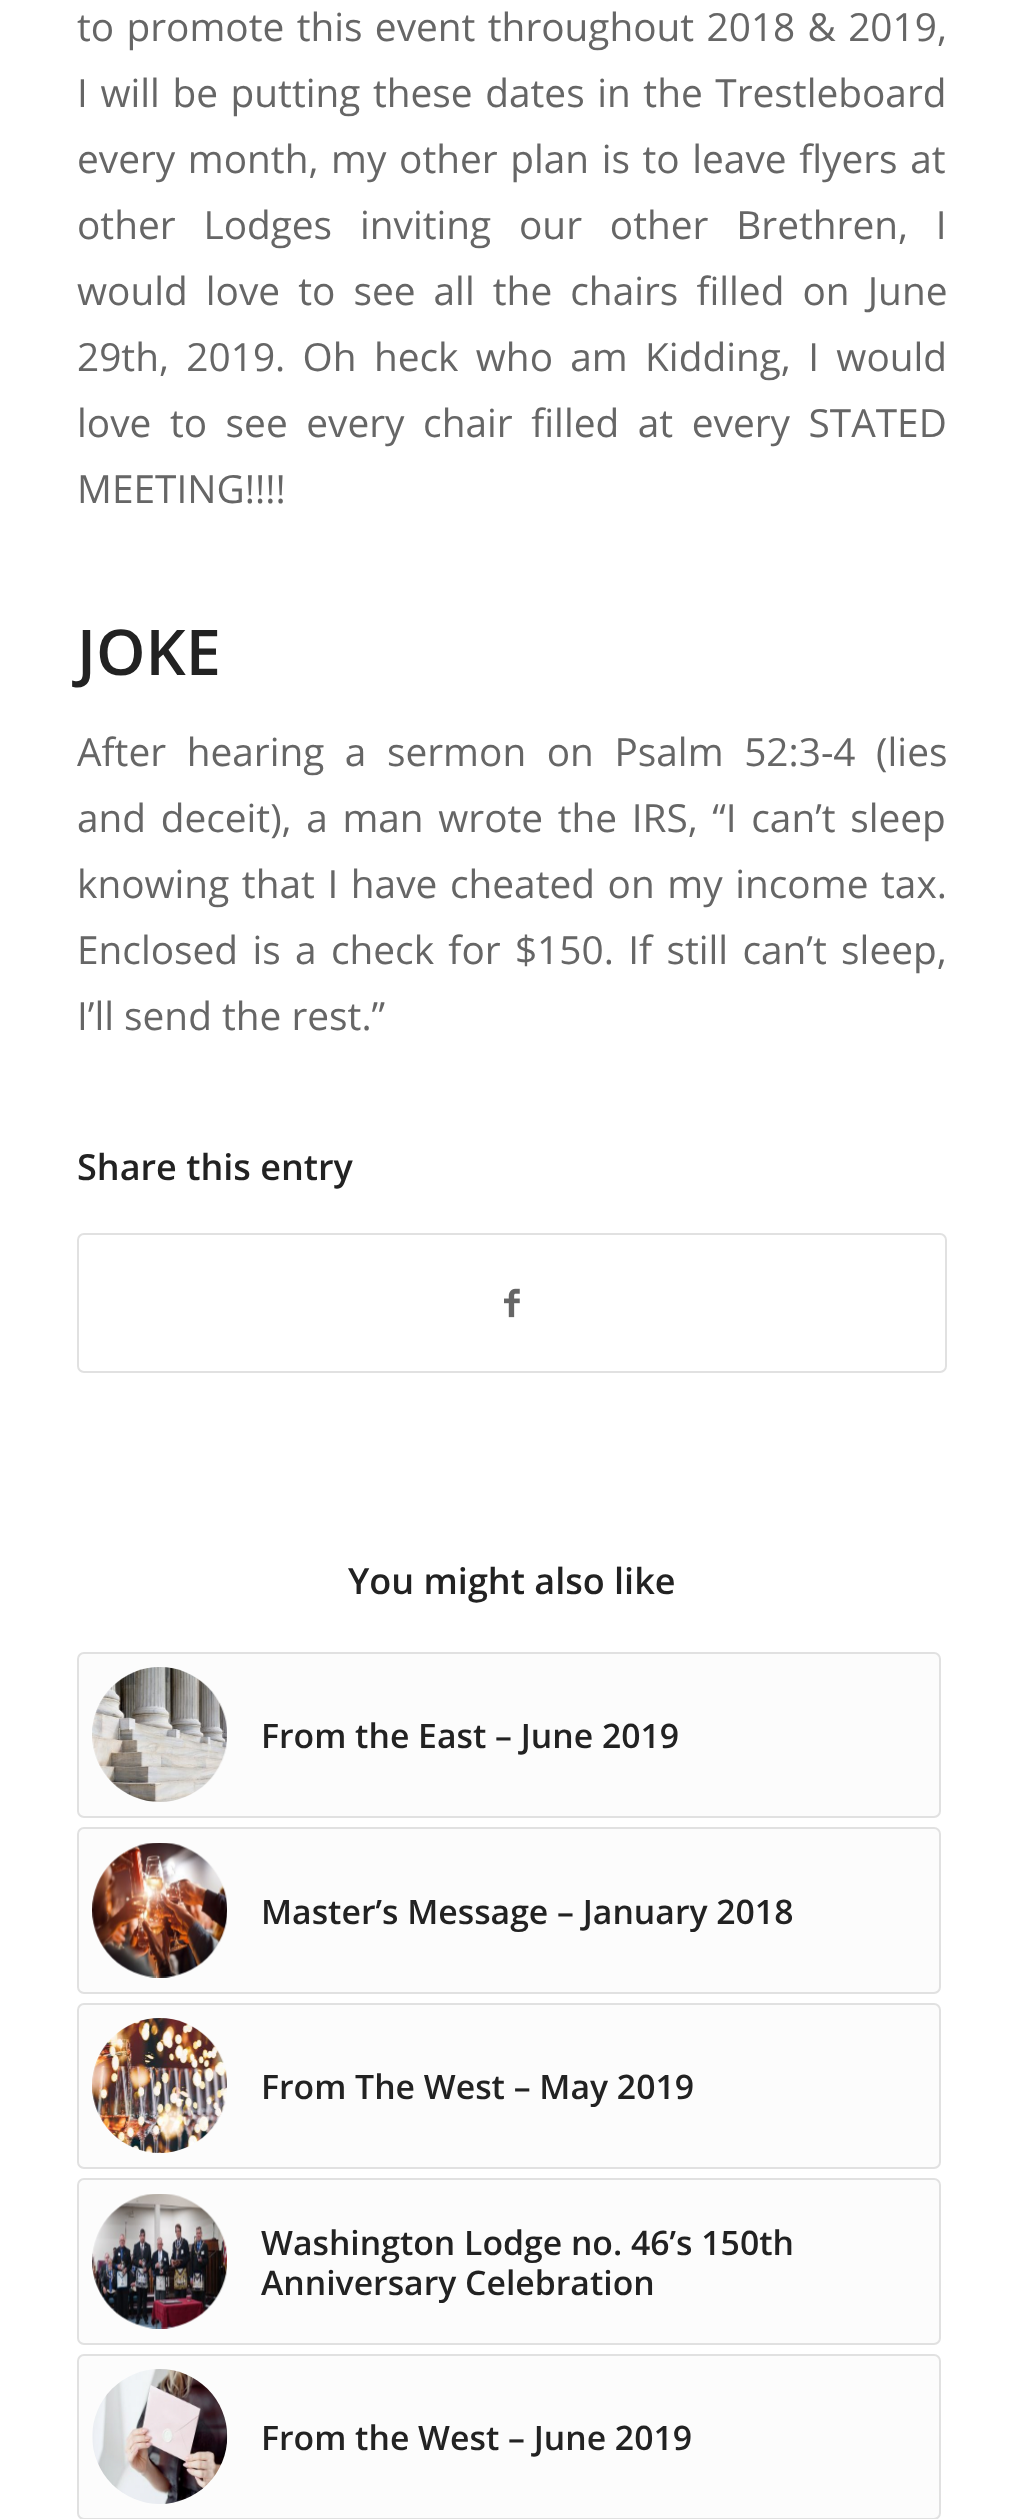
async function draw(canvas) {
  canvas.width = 1022;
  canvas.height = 2519;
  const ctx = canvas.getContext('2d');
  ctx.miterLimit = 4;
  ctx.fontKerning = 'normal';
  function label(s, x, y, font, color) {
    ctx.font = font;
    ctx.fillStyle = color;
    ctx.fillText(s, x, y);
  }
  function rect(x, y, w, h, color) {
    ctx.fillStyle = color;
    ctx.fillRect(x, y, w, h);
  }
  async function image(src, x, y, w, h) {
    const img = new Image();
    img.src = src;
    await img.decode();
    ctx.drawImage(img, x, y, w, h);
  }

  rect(0, 0, 1022, 2519, '#fff');
  ctx.wordSpacing = '2.25px';
  label('to promote this event throughout 2018 & 2019,', 77, 41, '38.8px Open Sans', '#666');
  ctx.wordSpacing = '2.5px';
  label('I will be putting these dates in the Trestleboard', 77, 107, '38.8px Open Sans', '#666');
  label('every month, my other plan is to leave flyers at', 77, 173, '38.8px Open Sans', '#666');
  ctx.wordSpacing = '17.75px';
  label('other Lodges inviting our other Brethren, I', 77, 239, '38.8px Open Sans', '#666');
  ctx.wordSpacing = '8px';
  label('would love to see all the chairs filled on June', 77, 305, '38.8px Open Sans', '#666');
  ctx.wordSpacing = '7.25px';
  label('29th, 2019. Oh heck who am Kidding, I would', 77, 371, '38.8px Open Sans', '#666');
  ctx.wordSpacing = '8.5px';
  label('love to see every chair filled at every STATED', 77, 437, '38.8px Open Sans', '#666');
  ctx.wordSpacing = '0px';
  label('MEETING!!!!', 77, 503, '38.8px Open Sans', '#666');
  label('JOKE', 77, 675, '600 63px Open Sans', '#222');
  ctx.wordSpacing = '10.5px';
  label('After hearing a sermon on Psalm 52:3-4 (lies', 77, 766, '38.8px Open Sans', '#666');
  ctx.wordSpacing = '4.5px';
  label('and deceit), a man wrote the IRS, “I can’t sleep', 77, 832, '38.8px Open Sans', '#666');
  ctx.wordSpacing = '2.5px';
  label('knowing that I have cheated on my income tax.', 77, 898, '38.8px Open Sans', '#666');
  ctx.wordSpacing = '4.25px';
  label('Enclosed is a check for $150. If still can’t sleep,', 77, 964, '38.8px Open Sans', '#666');
  ctx.wordSpacing = '0px';
  label('I’ll send the rest.”', 77, 1030, '38.8px Open Sans', '#666');
  label('Share this entry', 77, 1180, '600 36px Open Sans', '#222');
  ctx.beginPath();
  ctx.roundRect(78, 1234, 868, 138, 6);
  ctx.strokeStyle = '#e1e1e1';
  ctx.lineWidth = 2;
  ctx.stroke();
  await image('assets/img1.png', 504, 1288, 16, 30);
  label('You might also like', 348, 1594, '600 36px Open Sans', '#222');
  ctx.fillStyle = '#fcfcfc';
  ctx.beginPath();
  ctx.roundRect(78, 1653, 862, 164, 6);
  ctx.fill();
  ctx.stroke();
  await image('assets/img2.png', 92, 1667, 135, 135);
  label('From the East – June 2019', 261, 1748, '600 33.75px Open Sans', '#222');
  ctx.fillStyle = '#fcfcfc';
  ctx.beginPath();
  ctx.roundRect(78, 1828, 862, 165, 6);
  ctx.fill();
  ctx.stroke();
  await image('assets/img3.png', 92, 1843, 135, 135);
  label('Master’s Message – January 2018', 261, 1924, '600 33.75px Open Sans', '#222');
  ctx.fillStyle = '#fcfcfc';
  ctx.beginPath();
  ctx.roundRect(78, 2004, 862, 164, 6);
  ctx.fill();
  ctx.stroke();
  await image('assets/img4.png', 92, 2018, 135, 135);
  label('From The West – May 2019', 261, 2099, '600 33.75px Open Sans', '#222');
  ctx.fillStyle = '#fcfcfc';
  ctx.beginPath();
  ctx.roundRect(78, 2179, 862, 165, 6);
  ctx.fill();
  ctx.stroke();
  await image('assets/img5.png', 92, 2194, 135, 135);
  label('Washington Lodge no. 46’s 150th', 261, 2255, '600 33.75px Open Sans', '#222');
  label('Anniversary Celebration', 261, 2295, '600 33.75px Open Sans', '#222');
  ctx.fillStyle = '#fcfcfc';
  ctx.beginPath();
  ctx.roundRect(78, 2355, 862, 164, 6);
  ctx.fill();
  ctx.stroke();
  await image('assets/img6.png', 92, 2369, 136, 135);
  label('From the West – June 2019', 261, 2450, '600 33.75px Open Sans', '#222');
}

draw(document.querySelector('canvas'));
